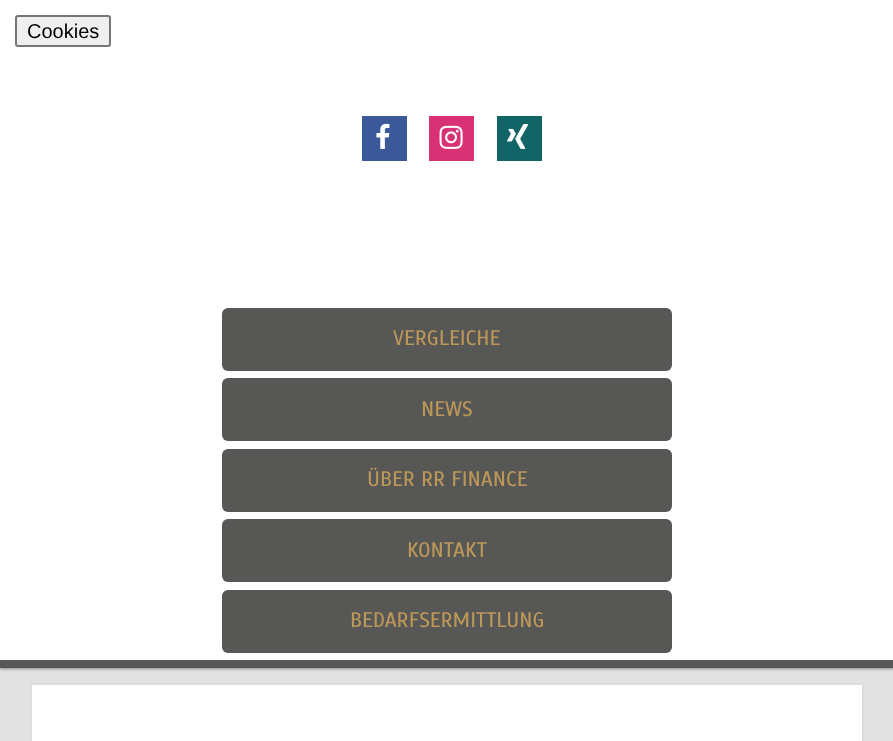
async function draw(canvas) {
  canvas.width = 893;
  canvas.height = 741;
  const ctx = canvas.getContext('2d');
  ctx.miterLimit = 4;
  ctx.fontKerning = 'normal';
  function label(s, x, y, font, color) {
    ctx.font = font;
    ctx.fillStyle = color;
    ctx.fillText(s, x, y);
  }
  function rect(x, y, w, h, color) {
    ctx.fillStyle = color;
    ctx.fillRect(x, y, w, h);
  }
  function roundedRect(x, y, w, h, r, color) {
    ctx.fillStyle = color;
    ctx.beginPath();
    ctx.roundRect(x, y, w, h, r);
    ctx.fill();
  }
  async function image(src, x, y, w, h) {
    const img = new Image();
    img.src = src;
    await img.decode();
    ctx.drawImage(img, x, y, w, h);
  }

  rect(0, 0, 893, 741, '#e2e2e2');
  ctx.fillStyle = '#00000066';
  ctx.filter = 'blur(1.5px)';
  ctx.beginPath();
  ctx.rect(0, 2, 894, 667);
  ctx.fill();
  ctx.filter = 'none';
  rect(0, 0, 893, 660, '#fff');
  ctx.fillStyle = '#efefef';
  ctx.beginPath();
  ctx.roundRect(16, 16, 94, 30, 2);
  ctx.fill();
  ctx.strokeStyle = '#767676';
  ctx.lineWidth = 2;
  ctx.stroke();
  label('Cookies', 27, 38, '20px Liberation Sans', '#000');
  rect(362, 116, 45, 45, '#3b5998');
  await image('assets/img1.png', 376, 123, 14, 26);
  rect(429, 116, 45, 45, '#d93175');
  await image('assets/img2.png', 439, 125, 24, 24);
  rect(497, 116, 45, 45, '#126567');
  await image('assets/img3.png', 507, 124, 22, 25);
  rect(0, 660, 893, 8, '#575756');
  roundedRect(222, 308, 450, 63, 6, '#575756');
  label('VERGLEICHE', 393, 345, '21px Scada', '#bc9758');
  roundedRect(222, 378, 450, 63, 6, '#575756');
  label('NEWS', 421, 416, '21px Scada', '#bc9758');
  roundedRect(222, 449, 450, 63, 6, '#575756');
  label('ÜBER RR FINANCE', 367, 486, '21px Scada', '#bc9758');
  roundedRect(222, 519, 450, 63, 6, '#575756');
  label('KONTAKT', 407, 557, '21px Scada', '#bc9758');
  roundedRect(222, 590, 450, 63, 6, '#575756');
  label('BEDARFSERMITTLUNG', 350, 627, '21px Scada', '#bc9758');
  ctx.fillStyle = '#fff';
  ctx.beginPath();
  ctx.rect(31, 684, 832, 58);
  ctx.fill();
  ctx.strokeStyle = '#ddd';
  ctx.stroke();
}

draw(document.querySelector('canvas'));
